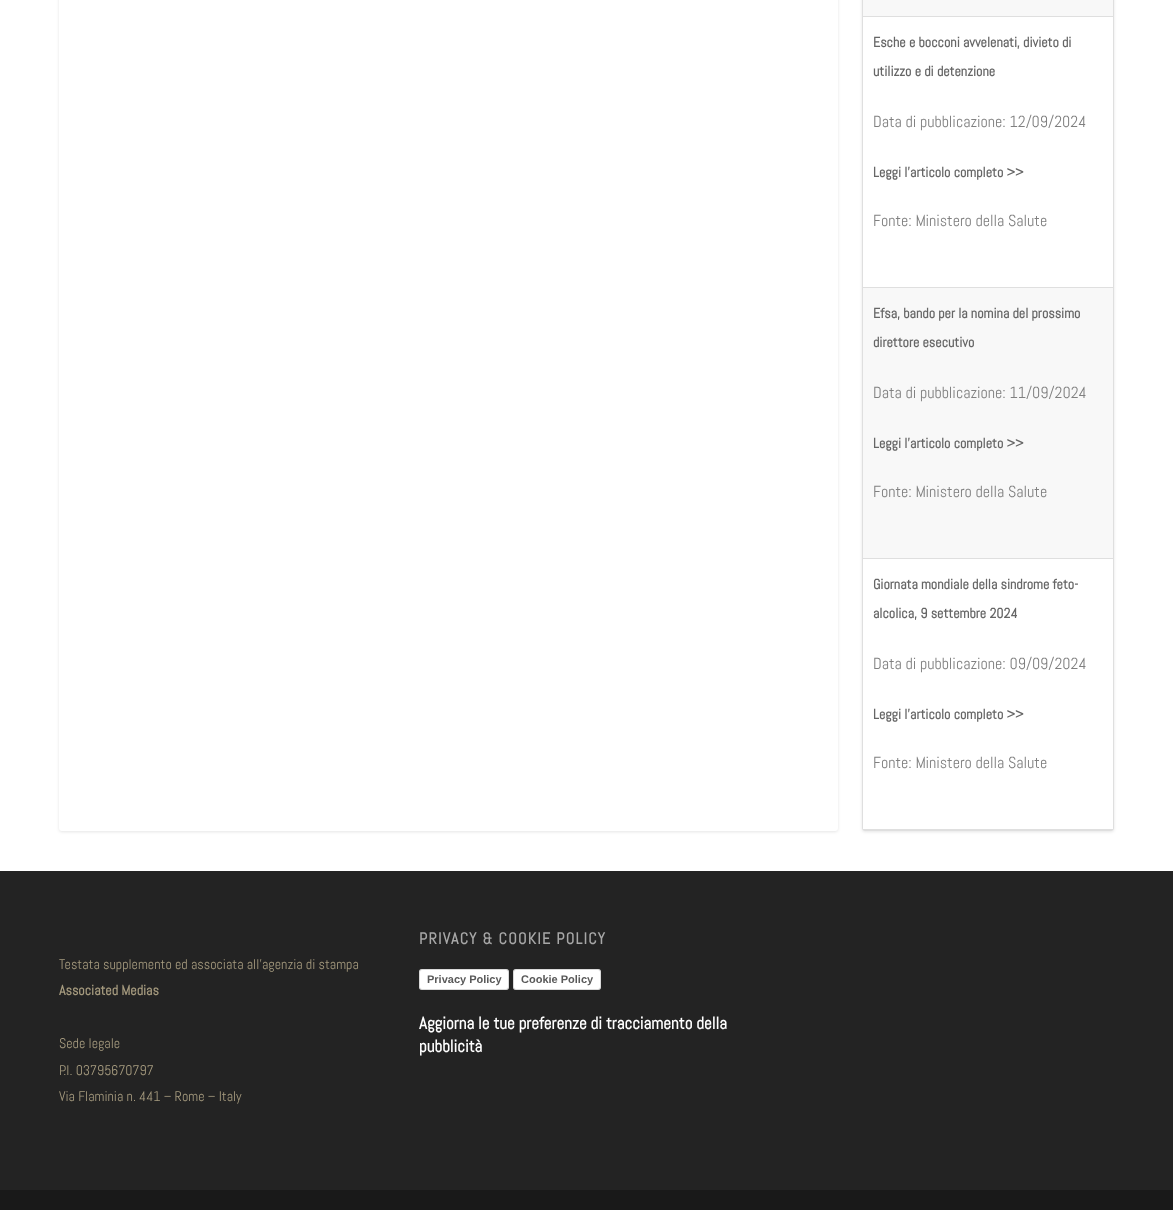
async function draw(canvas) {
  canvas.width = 1173;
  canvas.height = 1210;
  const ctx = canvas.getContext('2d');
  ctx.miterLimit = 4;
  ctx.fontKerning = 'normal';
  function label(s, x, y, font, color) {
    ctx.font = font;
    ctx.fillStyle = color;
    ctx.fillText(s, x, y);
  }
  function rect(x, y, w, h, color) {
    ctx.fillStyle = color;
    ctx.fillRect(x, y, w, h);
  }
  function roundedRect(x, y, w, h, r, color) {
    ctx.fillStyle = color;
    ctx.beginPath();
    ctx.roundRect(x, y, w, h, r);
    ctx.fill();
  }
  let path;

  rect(0, 0, 1173, 1210, '#fff');
  ctx.fillStyle = '#0000001a';
  ctx.filter = 'blur(1.5px)';
  ctx.beginPath();
  ctx.roundRect(59, -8, 779, 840, 3);
  ctx.fill();
  ctx.filter = 'none';
  roundedRect(59, -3, 779, 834, 3, '#fff');
  ctx.fillStyle = '#0000001a';
  ctx.filter = 'blur(1.5px)';
  ctx.beginPath();
  ctx.roundRect(862, -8, 252, 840, 3);
  ctx.fill();
  ctx.filter = 'none';
  roundedRect(862, -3, 252, 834, 3, '#fff');
  ctx.fillStyle = '#dfdfdf';
  path = new Path2D('M862-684V828C862 830 863 831 865 831H1111C1113 831 1114 830 1114 828V-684ZM863-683V830H1113V-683Z');
  ctx.fill(path, 'evenodd');
  rect(863, 0, 250, 16, '#f8f8f8');
  rect(863, 16, 250, 1, '#dfdfdf');
  rect(863, 287, 250, 1, '#dfdfdf');
  label('Esche e bocconi avvelenati, divieto di', 873, 47, 'bold 14px Abel', '#666');
  label('utilizzo e di detenzione', 873, 76, 'bold 14px Abel', '#666');
  label('Data di pubblicazione: 12/09/2024', 873, 127, '16px Abel', '#808080');
  label('Leggi l\'articolo completo >>', 873, 177, 'bold 14px Abel', '#666');
  label('Fonte: Ministero della Salute', 873, 226, '16px Abel', '#808080');
  rect(863, 288, 250, 270, '#f8f8f8');
  rect(863, 558, 250, 1, '#dfdfdf');
  label('Efsa, bando per la nomina del prossimo', 873, 318, 'bold 14px Abel', '#666');
  label('direttore esecutivo', 873, 347, 'bold 14px Abel', '#666');
  label('Data di pubblicazione: 11/09/2024', 873, 398, '16px Abel', '#808080');
  label('Leggi l\'articolo completo >>', 873, 448, 'bold 14px Abel', '#666');
  label('Fonte: Ministero della Salute', 873, 497, '16px Abel', '#808080');
  rect(863, 829, 250, 1, '#dfdfdf');
  label('Giornata mondiale della sindrome feto-', 873, 589, 'bold 14px Abel', '#666');
  label('alcolica, 9 settembre 2024', 873, 618, 'bold 14px Abel', '#666');
  label('Data di pubblicazione: 09/09/2024', 873, 669, '16px Abel', '#808080');
  label('Leggi l\'articolo completo >>', 873, 719, 'bold 14px Abel', '#666');
  label('Fonte: Ministero della Salute', 873, 768, '16px Abel', '#808080');
  rect(0, 871, 1173, 319, '#232323');
  label('Testata supplemento ed associata all’agenzia di stampa', 59, 969, '14px Abel', '#a59a7e');
  label('Associated Medias', 59, 995, 'bold 14px Abel', '#a59a7e');
  label('Sede legale', 59, 1048, '14px Abel', '#a59a7e');
  label('P.I. 03795670797', 59, 1075, '14px Abel', '#a59a7e');
  label('Via Flaminia n. 441 – Rome – Italy', 59, 1101, '14px Abel', '#a59a7e');
  ctx.letterSpacing = '1.2px';
  label('PRIVACY & COOKIE POLICY', 419, 944, 'bold 16px Abel', '#a7a7a7');
  roundedRect(419, 969, 90, 21, 3, '#fff');
  ctx.beginPath();
  ctx.roundRect(419.5, 969.5, 89, 20, 2.5);
  ctx.strokeStyle = '#00000026';
  ctx.stroke();
  ctx.letterSpacing = '0px';
  label('Privacy Policy', 427, 983, 'bold 11px Liberation Sans', '#595959');
  roundedRect(513, 969, 88, 21, 3, '#fff');
  ctx.beginPath();
  ctx.roundRect(513.5, 969.5, 87, 20, 2.5);
  ctx.stroke();
  label('Cookie Policy', 521, 983, 'bold 11px Liberation Sans', '#595959');
  label('Aggiorna le tue preferenze di tracciamento della', 419, 1029, 'bold 17px Abel', '#fff');
  label('pubblicità', 419, 1052, 'bold 17px Abel', '#fff');
  rect(0, 1190, 1173, 20, '#191919');
}

draw(document.querySelector('canvas'));
